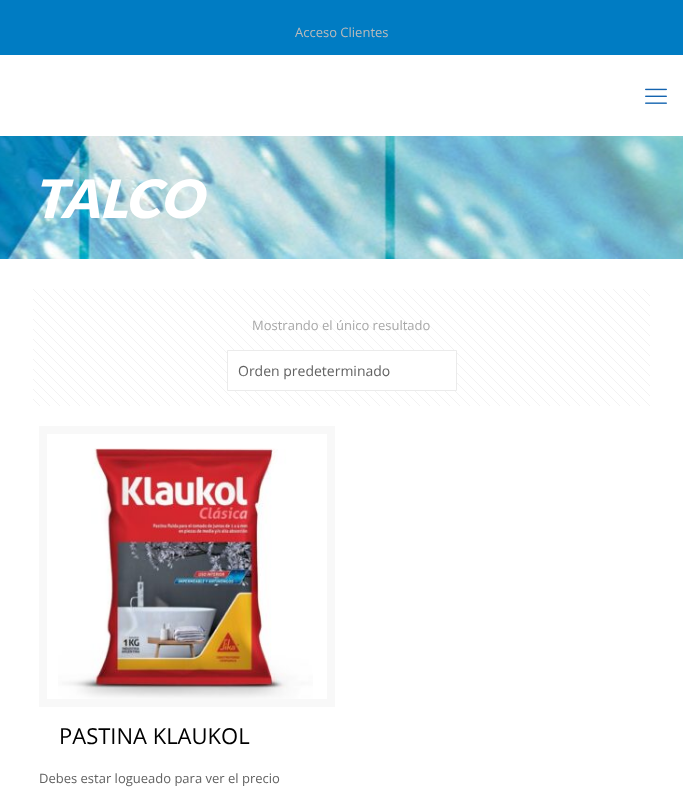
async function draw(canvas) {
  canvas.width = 683;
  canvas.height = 800;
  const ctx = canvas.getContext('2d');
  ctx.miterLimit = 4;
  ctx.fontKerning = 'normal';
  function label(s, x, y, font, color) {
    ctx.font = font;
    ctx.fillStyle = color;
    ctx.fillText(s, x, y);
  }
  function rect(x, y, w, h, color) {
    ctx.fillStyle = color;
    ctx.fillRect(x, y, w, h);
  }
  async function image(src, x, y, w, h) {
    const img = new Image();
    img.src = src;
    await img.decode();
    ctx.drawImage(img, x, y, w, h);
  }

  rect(0, 0, 683, 800, '#fff');
  await image('assets/img1.png', 0, 136, 683, 123);
  rect(0, 0, 683, 55, '#007cc3');
  label('Acceso Clientes', 295, 37, '13px Open Sans', '#bbb');
  await image('assets/img2.png', 645, 88, 22, 16);
  label('TALCO', 33, 218, 'italic 900 53px Lato', '#fff');
  await image('assets/img3.png', 33, 289, 617, 117);
  label('Mostrando el único resultado', 252, 330, '13px Open Sans', '#a8a8a8');
  ctx.fillStyle = '#fff';
  ctx.beginPath();
  ctx.rect(227.5, 350.5, 229, 40);
  ctx.fill();
  ctx.strokeStyle = '#ebebeb';
  ctx.stroke();
  label('Orden predeterminado', 238, 376, '14px Open Sans', '#626262');
  ctx.strokeStyle = '#f8f8f8';
  ctx.lineWidth = 8;
  ctx.strokeRect(43, 430, 288, 273);
  await image('assets/img4.png', 58, 448, 255, 251);
  label('PASTINA KLAUKOL', 59, 744, '22px Open Sans', '#000');
  label('Debes estar logueado para ver el precio', 39, 783, '13px Open Sans', '#626262');
}

draw(document.querySelector('canvas'));
